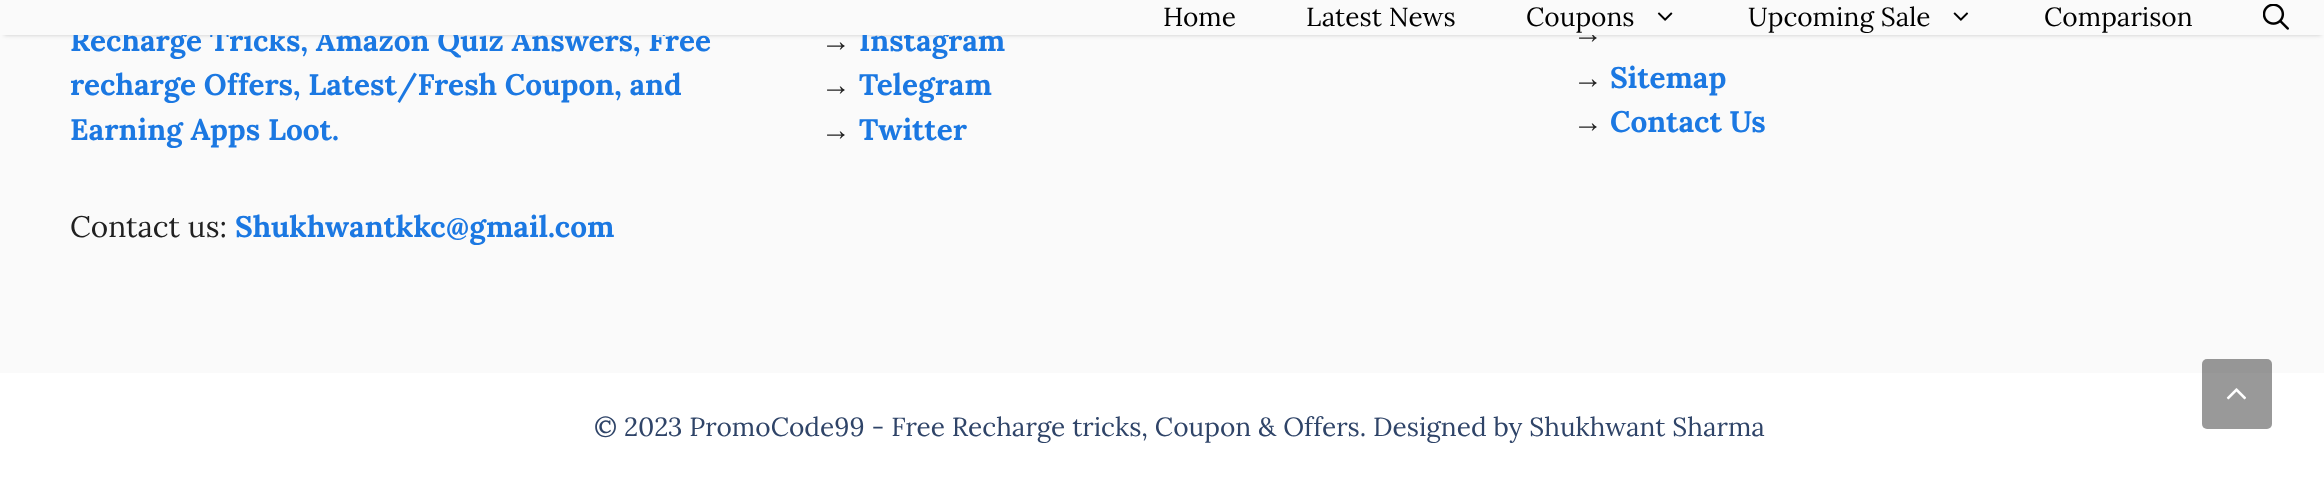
async function draw(canvas) {
  canvas.width = 2324;
  canvas.height = 481;
  const ctx = canvas.getContext('2d');
  ctx.miterLimit = 4;
  ctx.fontKerning = 'normal';
  function label(s, x, y, font, color) {
    ctx.font = font;
    ctx.fillStyle = color;
    ctx.fillText(s, x, y);
  }
  function rect(x, y, w, h, color) {
    ctx.fillStyle = color;
    ctx.fillRect(x, y, w, h);
  }
  function roundedRect(x, y, w, h, r, color) {
    ctx.fillStyle = color;
    ctx.beginPath();
    ctx.roundRect(x, y, w, h, r);
    ctx.fill();
  }
  async function image(src, x, y, w, h) {
    const img = new Image();
    img.src = src;
    await img.decode();
    ctx.drawImage(img, x, y, w, h);
  }

  rect(0, 0, 2324, 481, '#fff');
  rect(0, 35, 2324, 338, '#fafafa');
  ctx.fillStyle = '#00000033';
  ctx.filter = 'blur(2px)';
  ctx.beginPath();
  ctx.rect(4, 7, 2317, 28);
  ctx.fill();
  ctx.filter = 'none';
  label('Recharge Tricks, Amazon Quiz Answers, Free', 70, 51, 'bold 29.75px Lora', '#1b78e2');
  label('Instagram', 859, 51, 'bold 29.75px Lora', '#1b78e2');
  label('→', 1573, 43, '29.75px Liberation Serif', '#212121');
  rect(0, 0, 2324, 35, '#fafafa');
  label('Home', 1163, 26, '26.25px Lora', '#000');
  label('Latest News', 1306, 26, '26.25px Lora', '#000');
  label('Coupons', 1526, 26, '26.25px Lora', '#000');
  await image('assets/img1.png', 1657, 12, 16, 9);
  label('Upcoming Sale', 1748, 26, '26.25px Lora', '#000');
  await image('assets/img2.png', 1953, 12, 16, 9);
  label('Comparison', 2044, 26, '26.25px Lora', '#000');
  await image('assets/img3.png', 2263, 4, 26, 26);
  label('recharge Offers, Latest/Fresh Coupon, and', 70, 95, 'bold 29.75px Lora', '#1b78e2');
  label('Earning Apps Loot.', 70, 140, 'bold 29.75px Lora', '#1b78e2');
  label('Contact us:', 70, 237, '29.75px Lora', '#212121');
  label('Shukhwantkkc@gmail.com', 235, 237, 'bold 29.75px Lora', '#1b78e2');
  label('→', 821, 51, '29.75px Liberation Serif', '#212121');
  label('→', 821, 95, '29.75px Liberation Serif', '#212121');
  label('Telegram', 859, 95, 'bold 29.75px Lora', '#1b78e2');
  label('→', 821, 140, '29.75px Liberation Serif', '#212121');
  label('Twitter', 859, 140, 'bold 29.75px Lora', '#1b78e2');
  label('→', 1573, 88, '29.75px Liberation Serif', '#212121');
  label('Sitemap', 1610, 88, 'bold 29.75px Lora', '#1b78e2');
  label('→', 1573, 132, '29.75px Liberation Serif', '#212121');
  label('Contact Us', 1610, 132, 'bold 29.75px Lora', '#1b78e2');
  label('© 2023 PromoCode99 - Free Recharge tricks, Coupon & Offers. Designed by Shukhwant Sharma', 594, 436, '26.25px Lora', '#2f4468');
  roundedRect(2202, 359, 70, 70, 5, '#00000066');
  await image('assets/img4.png', 2226, 388, 20, 12);
}

draw(document.querySelector('canvas'));
